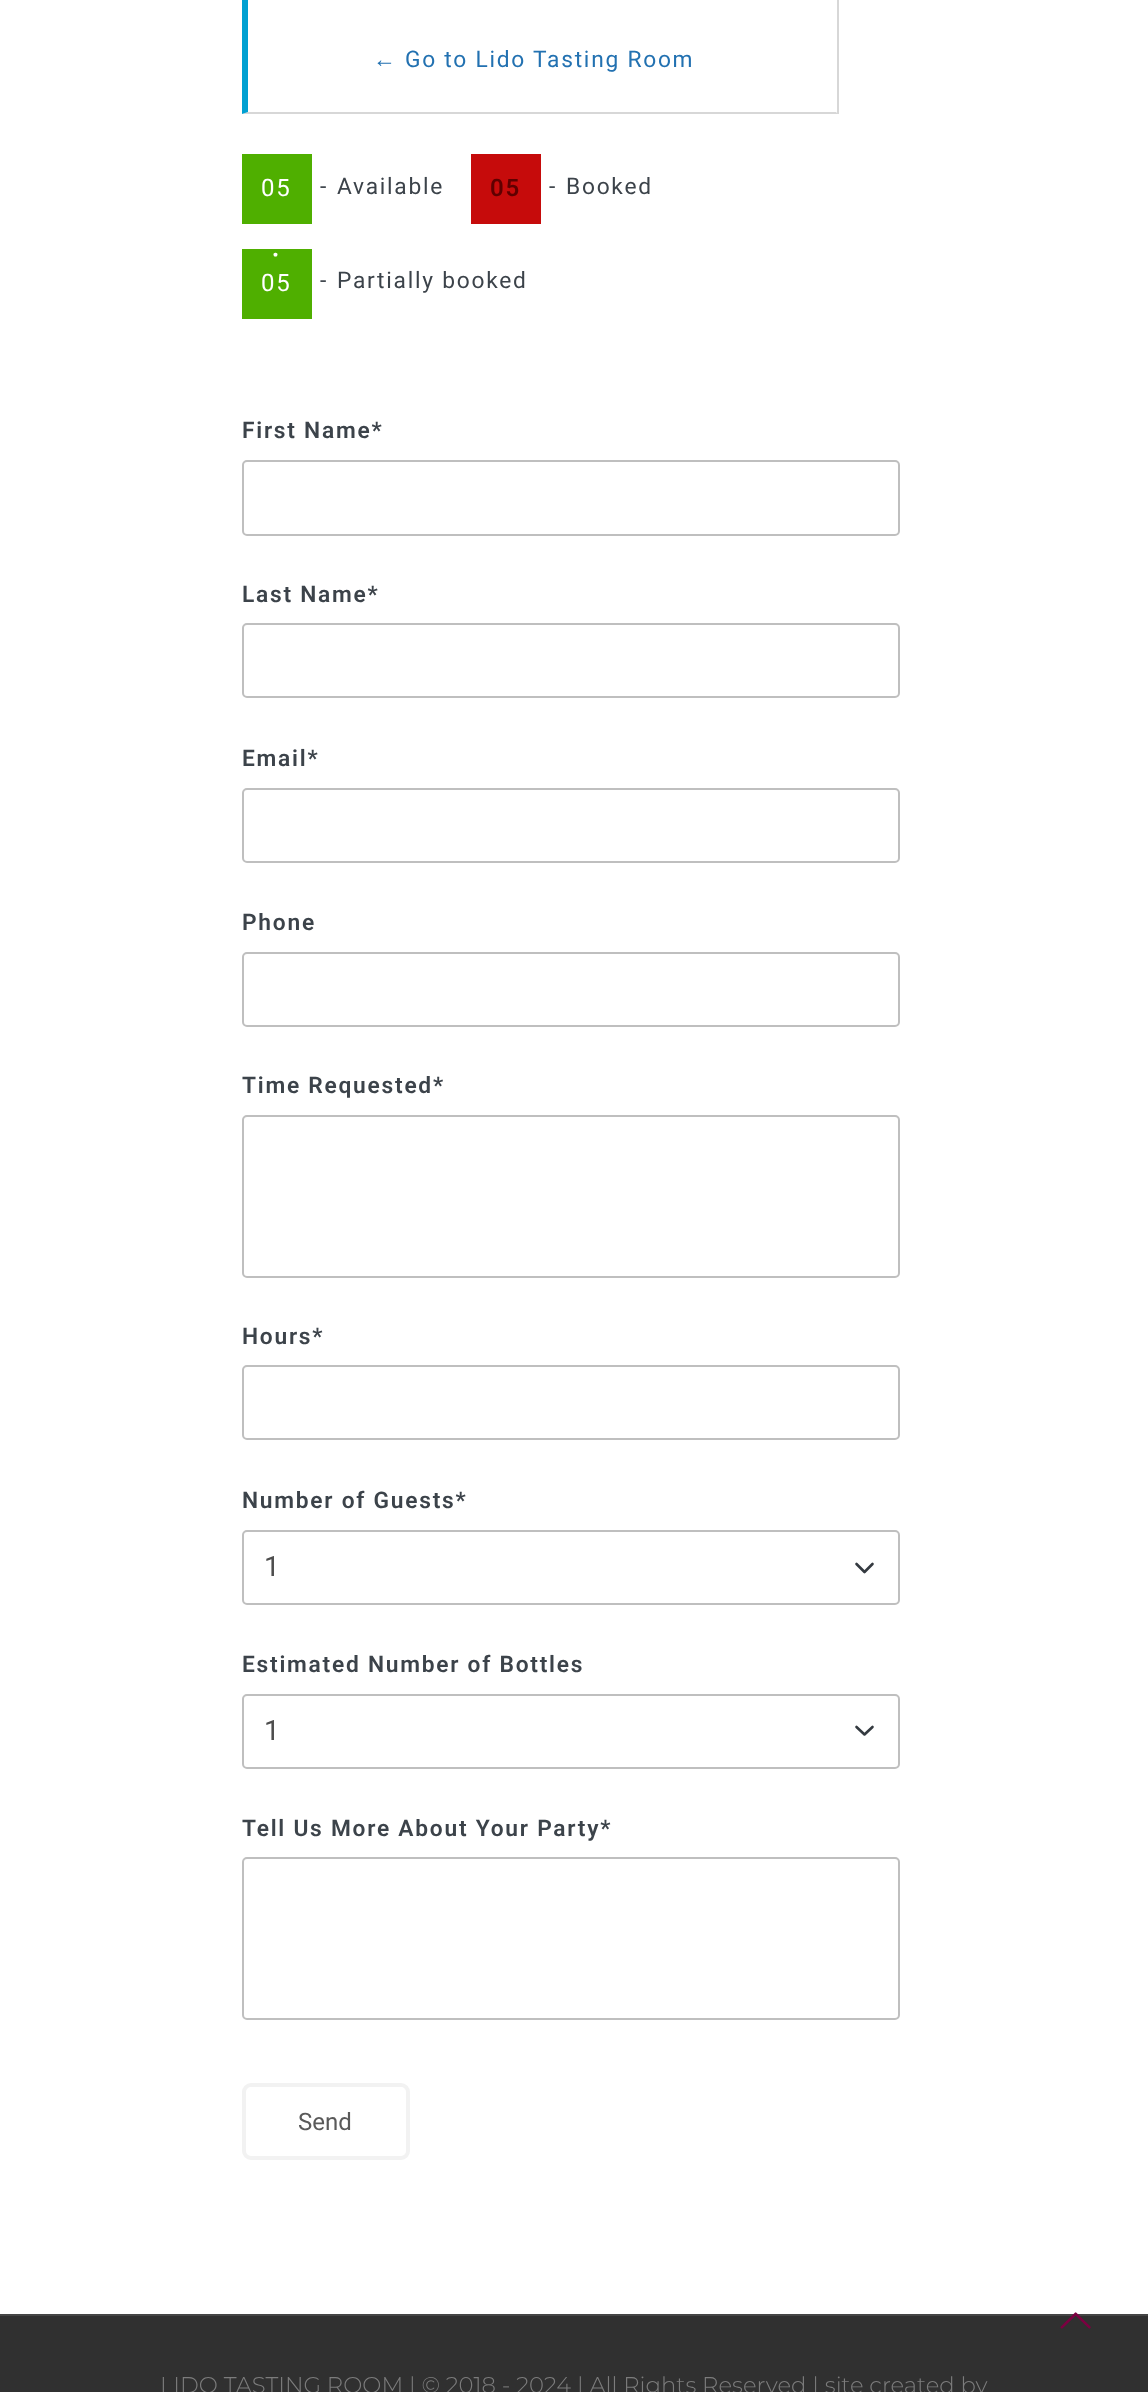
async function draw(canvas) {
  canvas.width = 1148;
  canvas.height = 2392;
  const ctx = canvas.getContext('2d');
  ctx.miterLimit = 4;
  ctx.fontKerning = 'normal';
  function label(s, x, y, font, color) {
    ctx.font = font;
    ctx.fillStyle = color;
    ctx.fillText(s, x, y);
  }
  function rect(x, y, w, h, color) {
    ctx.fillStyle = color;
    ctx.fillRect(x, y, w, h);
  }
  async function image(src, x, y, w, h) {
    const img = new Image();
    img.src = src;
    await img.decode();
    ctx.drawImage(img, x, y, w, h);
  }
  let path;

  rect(0, 0, 1148, 2392, '#fff');
  rect(837, 0, 2, 114, '#d7d7d7');
  path = new Path2D('M838 114H242L248 112H836Z');
  ctx.fill(path);
  ctx.fillStyle = '#00a0d2';
  path = new Path2D('M242 114V-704L248-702V112Z');
  ctx.fill(path);
  ctx.letterSpacing = '1.75px';
  label('←', 373, 67, '22.75px Liberation Sans', '#2271b1');
  label('Go to Lido Tasting Room', 405, 67, '22.75px Roboto', '#2271b1');
  rect(242, 154, 70, 70, '#4faf00');
  label('05', 261, 196, '24px Roboto', '#fff');
  label('-', 320, 194, '22.75px Roboto', '#3c434a');
  label('Available', 337, 194, '22.75px Roboto', '#3c434a');
  rect(471, 154, 70, 70, '#c60b0b');
  label('05', 490, 196, '600 24px Roboto', '#5f0000');
  label('-', 549, 194, '22.75px Roboto', '#3c434a');
  label('Booked', 566, 194, '22.75px Roboto', '#3c434a');
  rect(242, 249, 70, 70, '#4faf00');
  label('·', 271, 267, '35px Roboto', '#fff');
  label('05', 261, 291, '24px Roboto', '#fff');
  label('-', 320, 288, '22.75px Roboto', '#3c434a');
  label('Partially booked', 337, 288, '22.75px Roboto', '#3c434a');
  label('First Name*', 242, 438, '600 22.75px Roboto', '#3c434a');
  ctx.beginPath();
  ctx.roundRect(243, 461, 656, 74, 4);
  ctx.strokeStyle = '#bfbfbf';
  ctx.lineWidth = 2;
  ctx.stroke();
  label('Last Name*', 242, 602, '600 22.75px Roboto', '#3c434a');
  ctx.beginPath();
  ctx.roundRect(243, 624, 656, 73, 4);
  ctx.stroke();
  label('Email*', 242, 766, '600 22.75px Roboto', '#3c434a');
  ctx.beginPath();
  ctx.roundRect(243, 789, 656, 73, 4);
  ctx.stroke();
  label('Phone', 242, 930, '600 22.75px Roboto', '#3c434a');
  ctx.beginPath();
  ctx.roundRect(243, 953, 656, 73, 4);
  ctx.stroke();
  label('Time Requested*', 242, 1093, '600 22.75px Roboto', '#3c434a');
  ctx.beginPath();
  ctx.roundRect(243, 1116, 656, 161, 4);
  ctx.stroke();
  label('Hours*', 242, 1344, '600 22.75px Roboto', '#3c434a');
  ctx.beginPath();
  ctx.roundRect(243, 1366, 656, 73, 4);
  ctx.stroke();
  label('Number of Guests*', 242, 1508, '600 22.75px Roboto', '#3c434a');
  path = new Path2D('M856.5 1564L864.5 1572L872.5 1564');
  ctx.strokeStyle = '#343a40';
  ctx.lineWidth = 2.6;
  ctx.lineCap = 'round';
  ctx.lineJoin = 'round';
  ctx.stroke(path);
  ctx.beginPath();
  ctx.roundRect(243, 1531, 656, 73, 4);
  ctx.strokeStyle = '#bfbfbf';
  ctx.lineWidth = 2;
  ctx.lineJoin = 'miter';
  ctx.stroke();
  ctx.letterSpacing = '0px';
  label('1', 264, 1576, '28px Roboto', '#4d4d4d');
  ctx.letterSpacing = '1.75px';
  label('Estimated Number of Bottles', 242, 1672, '600 22.75px Roboto', '#3c434a');
  path = new Path2D('M856.5 1727L864.5 1734.5L872.5 1727');
  ctx.strokeStyle = '#343a40';
  ctx.lineWidth = 2.6;
  ctx.lineJoin = 'round';
  ctx.stroke(path);
  ctx.beginPath();
  ctx.roundRect(243, 1695, 656, 73, 4);
  ctx.strokeStyle = '#bfbfbf';
  ctx.lineWidth = 2;
  ctx.lineJoin = 'miter';
  ctx.stroke();
  ctx.letterSpacing = '0px';
  label('1', 264, 1740, '28px Roboto', '#4d4d4d');
  ctx.letterSpacing = '1.75px';
  label('Tell Us More About Your Party*', 242, 1836, '600 22.75px Roboto', '#3c434a');
  ctx.beginPath();
  ctx.roundRect(243, 1858, 656, 161, 4);
  ctx.stroke();
  ctx.beginPath();
  ctx.roundRect(244, 2085, 164, 73, 7);
  ctx.strokeStyle = '#f2f2f2';
  ctx.lineWidth = 4;
  ctx.stroke();
  ctx.letterSpacing = '0px';
  label('Send', 298, 2130, '24px Roboto', '#5a5a5a');
  rect(0, 2316, 1148, 76, '#303030');
  rect(0, 2314, 1148, 2, '#454545');
  label('LIDO TASTING ROOM | © 2018 - 2024 | All Rights Reserved | site created by', 160, 2393, '300 22.75px Montserrat', '#7c7c7c');
  await image('assets/img1.png', 1060, 2312, 31, 17);
}

draw(document.querySelector('canvas'));
